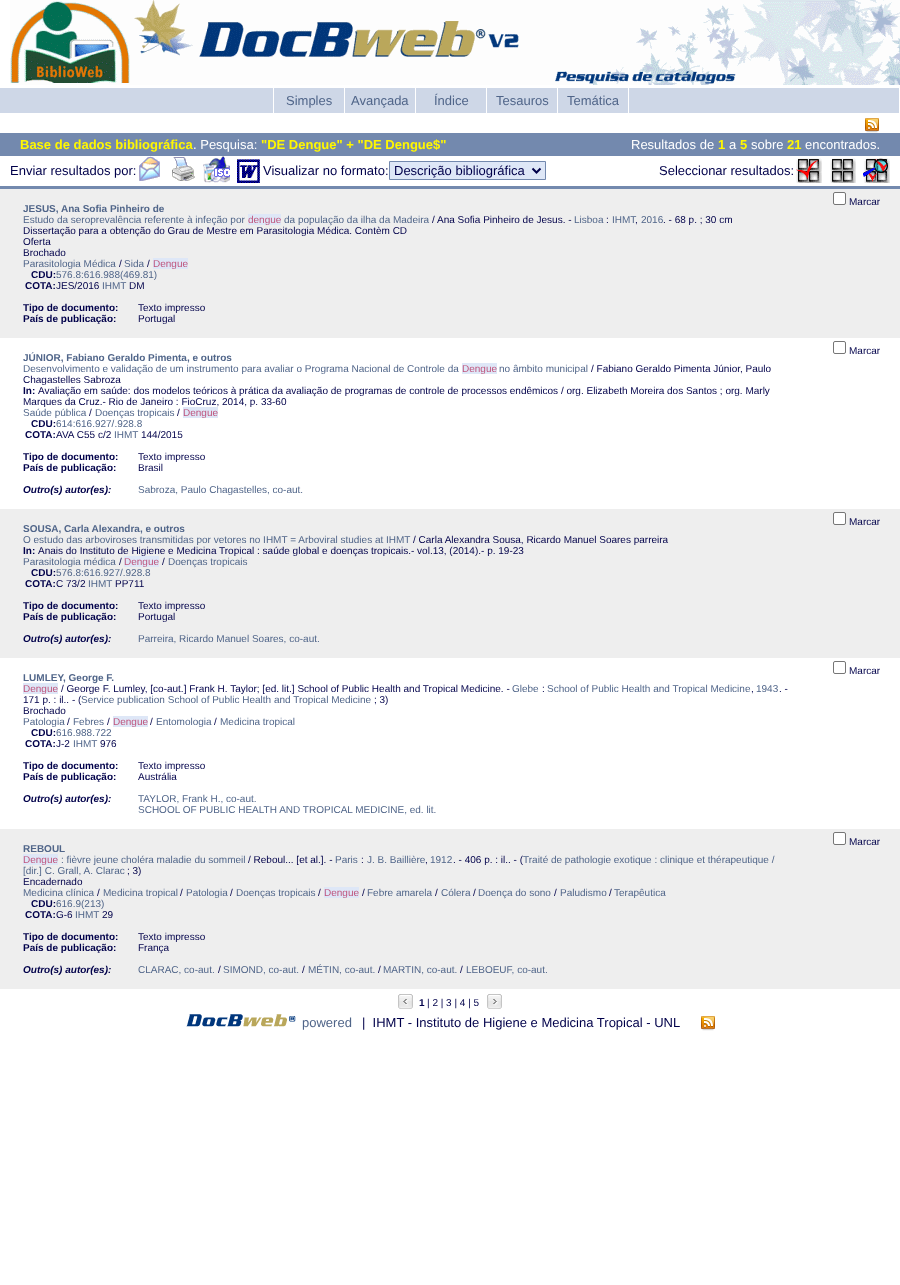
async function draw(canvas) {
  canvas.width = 900;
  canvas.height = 1285;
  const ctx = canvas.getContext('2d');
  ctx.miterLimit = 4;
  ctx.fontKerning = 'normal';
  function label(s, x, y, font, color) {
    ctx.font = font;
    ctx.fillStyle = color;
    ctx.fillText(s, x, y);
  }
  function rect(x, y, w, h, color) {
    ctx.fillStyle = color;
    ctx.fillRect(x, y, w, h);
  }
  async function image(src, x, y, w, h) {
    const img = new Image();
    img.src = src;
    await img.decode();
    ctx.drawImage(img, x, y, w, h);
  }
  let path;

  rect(0, 0, 900, 1285, '#fff');
  await image('assets/img1.png', 10, 0, 890, 85);
  rect(0, 88, 273, 25, '#ced7e7');
  rect(274, 88, 70, 25, '#ced7e7');
  label('Simples', 286, 105, '13px Liberation Sans', '#506589');
  rect(345, 88, 70, 25, '#ced7e7');
  label('Avançada', 351, 105, '13px Liberation Sans', '#506589');
  rect(416, 88, 70, 25, '#ced7e7');
  label('Índice', 434, 105, '13px Liberation Sans', '#506589');
  rect(487, 88, 70, 25, '#ced7e7');
  label('Tesauros', 496, 105, '13px Liberation Sans', '#506589');
  rect(558, 88, 70, 25, '#ced7e7');
  label('Temática', 567, 105, '13px Liberation Sans', '#506589');
  rect(629, 88, 270, 25, '#ced7e7');
  await image('assets/img2.png', 865, 118, 14, 15);
  rect(0, 133, 900, 23, '#7389ae');
  label('Base de dados bibliográfica', 20, 149, 'bold 13px Liberation Sans', '#fff700');
  label('. Pesquisa:', 193, 149, '13px Liberation Sans', '#fff');
  label('"DE Dengue" + "DE Dengue$"', 261, 149, 'bold 13px Liberation Sans', '#fff700');
  label('Resultados de', 631, 149, '13px Liberation Sans', '#fff');
  label('1', 718, 149, 'bold 13px Liberation Sans', '#fff700');
  label('a', 729, 149, '13px Liberation Sans', '#fff');
  label('5', 740, 149, 'bold 13px Liberation Sans', '#fff700');
  label('sobre', 751, 149, '13px Liberation Sans', '#fff');
  label('21', 787, 149, 'bold 13px Liberation Sans', '#fff700');
  label('encontrados.', 805, 149, '13px Liberation Sans', '#fff');
  label('Enviar resultados por:', 10, 175, '13px Liberation Sans', '#00004a');
  await image('assets/img3.png', 138, 156, 22, 25);
  await image('assets/img4.png', 172, 157, 23, 24);
  await image('assets/img5.png', 203, 156, 27, 27);
  await image('assets/img6.png', 237, 159, 23, 24);
  label('Visualizar no formato:', 263, 175, '13px Liberation Sans', '#00004a');
  ctx.fillStyle = '#dee7f7';
  ctx.beginPath();
  ctx.rect(389.5, 161.5, 156, 18);
  ctx.fill();
  ctx.strokeStyle = '#7389ae';
  ctx.stroke();
  path = new Path2D('M532.5 168.5L536.5 172.5L540.5 168.5');
  ctx.strokeStyle = '#00004a';
  ctx.lineWidth = 2;
  ctx.stroke(path);
  label('Descrição bibliográfica', 394, 175, '13px Liberation Sans', '#00004a');
  label('Seleccionar resultados:', 659, 175, '13px Liberation Sans', '#00004a');
  await image('assets/img7.png', 796, 158, 26, 25);
  await image('assets/img8.png', 830, 158, 26, 25);
  await image('assets/img9.png', 863, 158, 27, 25);
  rect(0, 186, 900, 3, '#7389ae');
  rect(0, 189, 900, 149, '#eee');
  ctx.fillStyle = '#fff';
  ctx.beginPath();
  ctx.roundRect(833.5, 192.5, 12, 12, 1.5);
  ctx.fill();
  ctx.strokeStyle = '#767676';
  ctx.lineWidth = 1;
  ctx.stroke();
  label('Marcar', 849, 205, '10px Liberation Sans', '#00004a');
  label('JESUS, Ana Sofia Pinheiro de', 23, 212, 'bold 10px Liberation Sans', '#506589');
  label('Estudo da seroprevalência referente à infeção por', 23, 223, '10px Liberation Sans', '#506589');
  rect(248, 214, 33, 11, '#dee7f7');
  label('dengue', 248, 223, '10px Liberation Sans', '#bf557d');
  label('da população da ilha da Madeira', 284, 223, '10px Liberation Sans', '#506589');
  label('/ Ana Sofia Pinheiro de Jesus. -', 432, 223, '10px Liberation Sans', '#00004a');
  label('Lisboa', 574, 223, '10px Liberation Sans', '#506589');
  label(':', 606, 223, '10px Liberation Sans', '#00004a');
  label('IHMT', 612, 223, '10px Liberation Sans', '#506589');
  label(',', 635, 223, '10px Liberation Sans', '#00004a');
  label('2016', 641, 223, '10px Liberation Sans', '#506589');
  label('. - 68 p. ; 30 cm', 663, 223, '10px Liberation Sans', '#00004a');
  label('Dissertação para a obtenção do Grau de Mestre em Parasitologia Médica. Contèm CD', 23, 234, '10px Liberation Sans', '#00004a');
  label('Oferta', 23, 245, '10px Liberation Sans', '#00004a');
  label('Brochado', 23, 256, '10px Liberation Sans', '#00004a');
  label('Parasitologia Médica', 23, 267, '10px Liberation Sans', '#506589');
  label('/', 119, 267, '10px Liberation Sans', '#00004a');
  label('Sida', 124, 267, '10px Liberation Sans', '#506589');
  label('/', 147, 267, '10px Liberation Sans', '#00004a');
  rect(153, 258, 35, 11, '#dee7f7');
  label('Dengue', 153, 267, '10px Liberation Sans', '#bf557d');
  label('CDU:', 31, 278, 'bold 10px Liberation Sans', '#00004a');
  label('576.8:616.988(469.81)', 56, 278, '10px Liberation Sans', '#506589');
  label('COTA:', 25, 289, 'bold 10px Liberation Sans', '#00004a');
  label('JES/2016', 56, 289, '10px Liberation Sans', '#00004a');
  label('IHMT', 102, 289, '10px Liberation Sans', '#506589');
  label('DM', 129, 289, '10px Liberation Sans', '#00004a');
  label('Tipo de documento:', 23, 311, 'bold 10px Liberation Sans', '#00004a');
  label('Texto impresso', 138, 311, '10px Liberation Sans', '#00004a');
  label('País de publicação:', 23, 322, 'bold 10px Liberation Sans', '#00004a');
  label('Portugal', 138, 322, '10px Liberation Sans', '#00004a');
  ctx.beginPath();
  ctx.roundRect(833.5, 341.5, 12, 12, 1.5);
  ctx.stroke();
  label('Marcar', 849, 354, '10px Liberation Sans', '#00004a');
  label('JÚNIOR, Fabiano Geraldo Pimenta, e outros', 23, 361, 'bold 10px Liberation Sans', '#506589');
  label('Desenvolvimento e validação de um instrumento para avaliar o Programa Nacional de Controle da', 23, 372, '10px Liberation Sans', '#506589');
  rect(462, 363, 35, 11, '#dee7f7');
  label('Dengue', 462, 372, '10px Liberation Sans', '#bf557d');
  label('no âmbito municipal', 499, 372, '10px Liberation Sans', '#506589');
  label('/ Fabiano Geraldo Pimenta Júnior, Paulo', 591, 372, '10px Liberation Sans', '#00004a');
  label('Chagastelles Sabroza', 23, 383, '10px Liberation Sans', '#00004a');
  label('In:', 23, 394, 'bold 10px Liberation Sans', '#00004a');
  label('Avaliação em saúde: dos modelos teóricos à prática da avaliação de programas de controle de processos endêmicos / org. Elizabeth Moreira dos Santos ; org. Marly', 38, 394, '10px Liberation Sans', '#00004a');
  label('Marques da Cruz.- Rio de Janeiro : FioCruz, 2014, p. 33-60', 23, 405, '10px Liberation Sans', '#00004a');
  label('Saúde pública', 23, 416, '10px Liberation Sans', '#506589');
  label('/', 89, 416, '10px Liberation Sans', '#00004a');
  label('Doenças tropicais', 95, 416, '10px Liberation Sans', '#506589');
  label('/', 177, 416, '10px Liberation Sans', '#00004a');
  rect(183, 407, 35, 11, '#dee7f7');
  label('Dengue', 183, 416, '10px Liberation Sans', '#bf557d');
  label('CDU:', 31, 427, 'bold 10px Liberation Sans', '#00004a');
  label('614:616.927/.928.8', 56, 427, '10px Liberation Sans', '#506589');
  label('COTA:', 25, 438, 'bold 10px Liberation Sans', '#00004a');
  label('AVA C55 c/2', 56, 438, '10px Liberation Sans', '#00004a');
  label('IHMT', 114, 438, '10px Liberation Sans', '#506589');
  label('144/2015', 141, 438, '10px Liberation Sans', '#00004a');
  label('Tipo de documento:', 23, 460, 'bold 10px Liberation Sans', '#00004a');
  label('Texto impresso', 138, 460, '10px Liberation Sans', '#00004a');
  label('País de publicação:', 23, 471, 'bold 10px Liberation Sans', '#00004a');
  label('Brasil', 138, 471, '10px Liberation Sans', '#00004a');
  label('Outro(s) autor(es):', 23, 493, 'italic bold 10px Liberation Sans', '#00004a');
  label('Sabroza, Paulo Chagastelles, co-aut.', 138, 493, '10px Liberation Sans', '#506589');
  rect(0, 509, 900, 149, '#eee');
  ctx.fillStyle = '#fff';
  ctx.beginPath();
  ctx.roundRect(833.5, 512.5, 12, 12, 1.5);
  ctx.fill();
  ctx.stroke();
  label('Marcar', 849, 525, '10px Liberation Sans', '#00004a');
  label('SOUSA, Carla Alexandra, e outros', 23, 532, 'bold 10px Liberation Sans', '#506589');
  label('O estudo das arboviroses transmitidas por vetores no IHMT = Arboviral studies at IHMT', 23, 543, '10px Liberation Sans', '#506589');
  label('/ Carla Alexandra Sousa, Ricardo Manuel Soares parreira', 413, 543, '10px Liberation Sans', '#00004a');
  label('In:', 23, 554, 'bold 10px Liberation Sans', '#00004a');
  label('Anais do Instituto de Higiene e Medicina Tropical : saúde global e doenças tropicais.- vol.13, (2014).- p. 19-23', 38, 554, '10px Liberation Sans', '#00004a');
  label('Parasitologia médica', 23, 565, '10px Liberation Sans', '#506589');
  label('/', 119, 565, '10px Liberation Sans', '#00004a');
  rect(124, 556, 35, 11, '#dee7f7');
  label('Dengue', 124, 565, '10px Liberation Sans', '#bf557d');
  label('/', 162, 565, '10px Liberation Sans', '#00004a');
  label('Doenças tropicais', 168, 565, '10px Liberation Sans', '#506589');
  label('CDU:', 31, 576, 'bold 10px Liberation Sans', '#00004a');
  label('576.8:616.927/.928.8', 56, 576, '10px Liberation Sans', '#506589');
  label('COTA:', 25, 587, 'bold 10px Liberation Sans', '#00004a');
  label('C 73/2', 56, 587, '10px Liberation Sans', '#00004a');
  label('IHMT', 88, 587, '10px Liberation Sans', '#506589');
  label('PP711', 115, 587, '10px Liberation Sans', '#00004a');
  label('Tipo de documento:', 23, 609, 'bold 10px Liberation Sans', '#00004a');
  label('Texto impresso', 138, 609, '10px Liberation Sans', '#00004a');
  label('País de publicação:', 23, 620, 'bold 10px Liberation Sans', '#00004a');
  label('Portugal', 138, 620, '10px Liberation Sans', '#00004a');
  label('Outro(s) autor(es):', 23, 642, 'italic bold 10px Liberation Sans', '#00004a');
  label('Parreira, Ricardo Manuel Soares, co-aut.', 138, 642, '10px Liberation Sans', '#506589');
  ctx.beginPath();
  ctx.roundRect(833.5, 661.5, 12, 12, 1.5);
  ctx.stroke();
  label('Marcar', 849, 674, '10px Liberation Sans', '#00004a');
  label('LUMLEY, George F.', 23, 681, 'bold 10px Liberation Sans', '#506589');
  rect(23, 683, 35, 11, '#dee7f7');
  label('Dengue', 23, 692, '10px Liberation Sans', '#bf557d');
  label('/ George F. Lumley, [co-aut.] Frank H. Taylor; [ed. lit.] School of Public Health and Tropical Medicine. -', 61, 692, '10px Liberation Sans', '#00004a');
  label('Glebe', 512, 692, '10px Liberation Sans', '#506589');
  label(':', 542, 692, '10px Liberation Sans', '#00004a');
  label('School of Public Health and Tropical Medicine', 547, 692, '10px Liberation Sans', '#506589');
  label(',', 751, 692, '10px Liberation Sans', '#00004a');
  label('1943', 756, 692, '10px Liberation Sans', '#506589');
  label('. -', 779, 692, '10px Liberation Sans', '#00004a');
  label('171 p. : il.. - (', 23, 703, '10px Liberation Sans', '#00004a');
  label('Service publication School of Public Health and Tropical Medicine', 81, 703, '10px Liberation Sans', '#506589');
  label('; 3)', 374, 703, '10px Liberation Sans', '#00004a');
  label('Brochado', 23, 714, '10px Liberation Sans', '#00004a');
  label('Patologia', 23, 725, '10px Liberation Sans', '#506589');
  label('/', 67, 725, '10px Liberation Sans', '#00004a');
  label('Febres', 73, 725, '10px Liberation Sans', '#506589');
  label('/', 107, 725, '10px Liberation Sans', '#00004a');
  rect(113, 716, 35, 11, '#dee7f7');
  label('Dengue', 113, 725, '10px Liberation Sans', '#bf557d');
  label('/', 150, 725, '10px Liberation Sans', '#00004a');
  label('Entomologia', 156, 725, '10px Liberation Sans', '#506589');
  label('/', 214, 725, '10px Liberation Sans', '#00004a');
  label('Medicina tropical', 220, 725, '10px Liberation Sans', '#506589');
  label('CDU:', 31, 736, 'bold 10px Liberation Sans', '#00004a');
  label('616.988.722', 56, 736, '10px Liberation Sans', '#506589');
  label('COTA:', 25, 747, 'bold 10px Liberation Sans', '#00004a');
  label('J-2', 56, 747, '10px Liberation Sans', '#00004a');
  label('IHMT', 73, 747, '10px Liberation Sans', '#506589');
  label('976', 100, 747, '10px Liberation Sans', '#00004a');
  label('Tipo de documento:', 23, 769, 'bold 10px Liberation Sans', '#00004a');
  label('Texto impresso', 138, 769, '10px Liberation Sans', '#00004a');
  label('País de publicação:', 23, 780, 'bold 10px Liberation Sans', '#00004a');
  label('Austrália', 138, 780, '10px Liberation Sans', '#00004a');
  label('Outro(s) autor(es):', 23, 802, 'italic bold 10px Liberation Sans', '#00004a');
  label('TAYLOR, Frank H., co-aut.', 138, 802, '10px Liberation Sans', '#506589');
  label('SCHOOL OF PUBLIC HEALTH AND TROPICAL MEDICINE, ed. lit.', 138, 813, '10px Liberation Sans', '#506589');
  rect(0, 829, 900, 160, '#eee');
  ctx.fillStyle = '#fff';
  ctx.beginPath();
  ctx.roundRect(833.5, 832.5, 12, 12, 1.5);
  ctx.fill();
  ctx.stroke();
  label('Marcar', 849, 845, '10px Liberation Sans', '#00004a');
  label('REBOUL', 23, 852, 'bold 10px Liberation Sans', '#506589');
  rect(23, 854, 35, 11, '#dee7f7');
  label('Dengue', 23, 863, '10px Liberation Sans', '#bf557d');
  label(': fièvre jeune choléra maladie du sommeil', 61, 863, '10px Liberation Sans', '#506589');
  label('/ Reboul... [et al.]. -', 248, 863, '10px Liberation Sans', '#00004a');
  label('Paris', 335, 863, '10px Liberation Sans', '#506589');
  label(':', 361, 863, '10px Liberation Sans', '#00004a');
  label('J. B. Baillière', 367, 863, '10px Liberation Sans', '#506589');
  label(',', 425, 863, '10px Liberation Sans', '#00004a');
  label('1912', 430, 863, '10px Liberation Sans', '#506589');
  label('. - 406 p. : il.. - (', 453, 863, '10px Liberation Sans', '#00004a');
  label('Traité de pathologie exotique : clinique et thérapeutique /', 523, 863, '10px Liberation Sans', '#506589');
  label('[dir.] C. Grall, A. Clarac', 23, 874, '10px Liberation Sans', '#506589');
  label('; 3)', 127, 874, '10px Liberation Sans', '#00004a');
  label('Encadernado', 23, 885, '10px Liberation Sans', '#00004a');
  label('Medicina clínica', 23, 896, '10px Liberation Sans', '#506589');
  label('/', 97, 896, '10px Liberation Sans', '#00004a');
  label('Medicina tropical', 103, 896, '10px Liberation Sans', '#506589');
  label('/', 180, 896, '10px Liberation Sans', '#00004a');
  label('Patologia', 186, 896, '10px Liberation Sans', '#506589');
  label('/', 230, 896, '10px Liberation Sans', '#00004a');
  label('Doenças tropicais', 236, 896, '10px Liberation Sans', '#506589');
  label('/', 318, 896, '10px Liberation Sans', '#00004a');
  rect(324, 887, 35, 11, '#dee7f7');
  label('Dengue', 324, 896, '10px Liberation Sans', '#bf557d');
  label('/', 362, 896, '10px Liberation Sans', '#00004a');
  label('Febre amarela', 367, 896, '10px Liberation Sans', '#506589');
  label('/', 435, 896, '10px Liberation Sans', '#00004a');
  label('Cólera', 441, 896, '10px Liberation Sans', '#506589');
  label('/', 473, 896, '10px Liberation Sans', '#00004a');
  label('Doença do sono', 478, 896, '10px Liberation Sans', '#506589');
  label('/', 554, 896, '10px Liberation Sans', '#00004a');
  label('Paludismo', 560, 896, '10px Liberation Sans', '#506589');
  label('/', 609, 896, '10px Liberation Sans', '#00004a');
  label('Terapêutica', 614, 896, '10px Liberation Sans', '#506589');
  label('CDU:', 31, 907, 'bold 10px Liberation Sans', '#00004a');
  label('616.9(213)', 56, 907, '10px Liberation Sans', '#506589');
  label('COTA:', 25, 918, 'bold 10px Liberation Sans', '#00004a');
  label('G-6', 56, 918, '10px Liberation Sans', '#00004a');
  label('IHMT', 75, 918, '10px Liberation Sans', '#506589');
  label('29', 102, 918, '10px Liberation Sans', '#00004a');
  label('Tipo de documento:', 23, 940, 'bold 10px Liberation Sans', '#00004a');
  label('Texto impresso', 138, 940, '10px Liberation Sans', '#00004a');
  label('País de publicação:', 23, 951, 'bold 10px Liberation Sans', '#00004a');
  label('França', 138, 951, '10px Liberation Sans', '#00004a');
  label('Outro(s) autor(es):', 23, 973, 'italic bold 10px Liberation Sans', '#00004a');
  label('CLARAC, co-aut.', 138, 973, '10px Liberation Sans', '#506589');
  label('/', 218, 973, '10px Liberation Sans', '#00004a');
  label('SIMOND, co-aut.', 223, 973, '10px Liberation Sans', '#506589');
  label('/', 302, 973, '10px Liberation Sans', '#00004a');
  label('MÉTIN, co-aut.', 308, 973, '10px Liberation Sans', '#506589');
  label('/', 378, 973, '10px Liberation Sans', '#00004a');
  label('MARTIN, co-aut.', 383, 973, '10px Liberation Sans', '#506589');
  label('/', 460, 973, '10px Liberation Sans', '#00004a');
  label('LEBOEUF, co-aut.', 466, 973, '10px Liberation Sans', '#506589');
  await image('assets/img10.png', 398, 994, 15, 15);
  label('1', 419, 1006, 'bold 10px Liberation Sans', '#00004a');
  label('| 2 | 3 | 4 | 5', 427, 1006, '10px Liberation Sans', '#00004a');
  await image('assets/img11.png', 487, 994, 15, 15);
  await image('assets/img12.png', 186, 1014, 110, 13);
  label('powered', 302, 1027, '13px Liberation Sans', '#506589');
  label('|  IHMT - Instituto de Higiene e Medicina Tropical - UNL', 362, 1027, '13px Liberation Sans', '#00004a');
  await image('assets/img2.png', 701, 1016, 14, 15);
}

draw(document.querySelector('canvas'));
